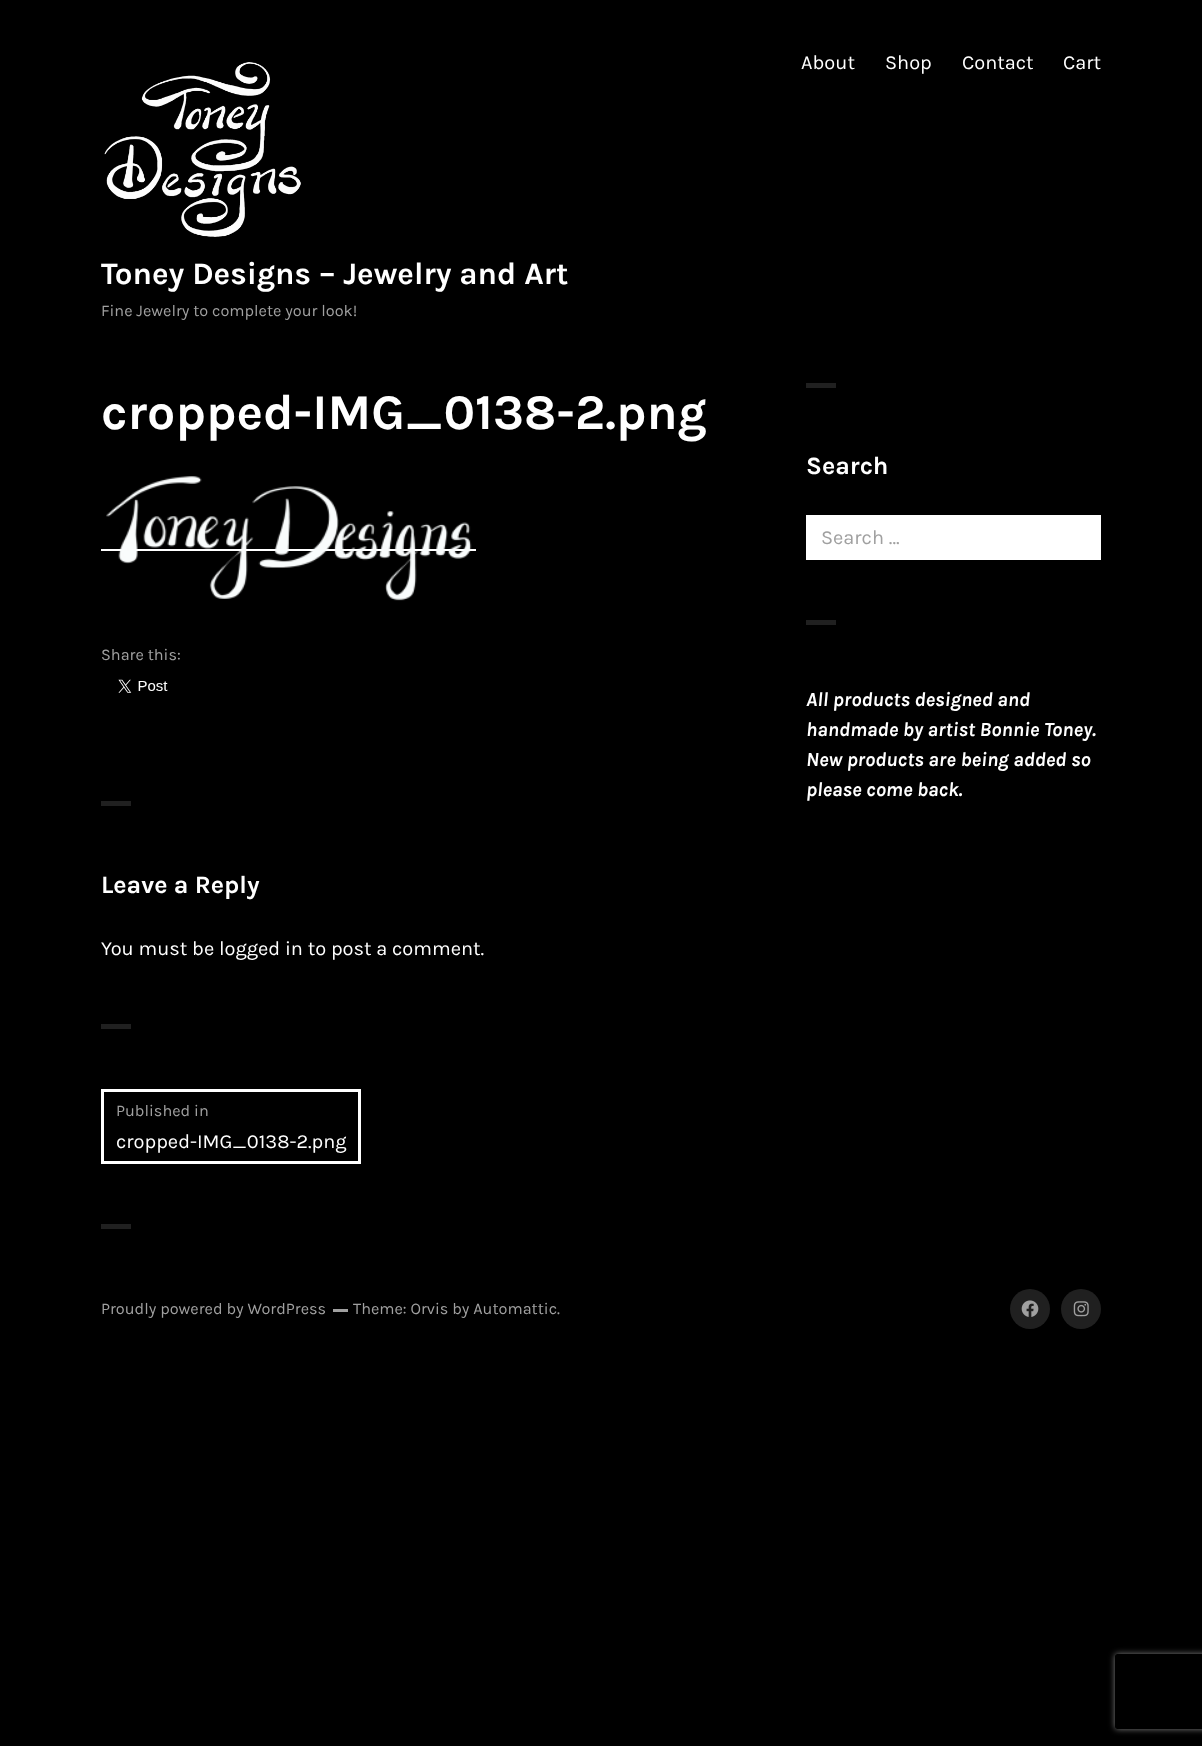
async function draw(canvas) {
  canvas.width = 1202;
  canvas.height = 1746;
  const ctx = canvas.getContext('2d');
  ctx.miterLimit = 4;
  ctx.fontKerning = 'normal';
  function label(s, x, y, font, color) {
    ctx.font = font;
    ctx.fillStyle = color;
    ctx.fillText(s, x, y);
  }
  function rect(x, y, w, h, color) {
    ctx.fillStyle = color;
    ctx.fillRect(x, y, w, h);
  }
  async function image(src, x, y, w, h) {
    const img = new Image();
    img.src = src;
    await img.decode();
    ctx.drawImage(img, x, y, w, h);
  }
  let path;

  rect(0, 0, 1202, 1746, '#000');
  label('About', 801, 69, '20px Karla', '#fff');
  label('Shop', 885, 69, '20px Karla', '#fff');
  label('Contact', 962, 69, '20px Karla', '#fff');
  label('Cart', 1063, 69, '20px Karla', '#fff');
  await image('assets/img1.png', 104, 62, 197, 175);
  label('Toney Designs – Jewelry and Art', 101, 284, 'bold 31.25px Karla', '#fff');
  label('Fine Jewelry to complete your look!', 101, 316, '16.25px Karla', '#a0a0a0');
  label('cropped-IMG_0138-2.png', 101, 429, 'bold 50px Karla', '#fff');
  path = new Path2D('M101 528V551H476V549H101Z');
  ctx.fill(path);
  await image('assets/img2.png', 106, 476, 366, 125);
  label('Share this:', 101, 660, '16.25px Karla', '#a0a0a0');
  await image('assets/img3.png', 118, 679, 50, 14);
  rect(101, 801, 30, 5, '#202020');
  label('Leave a Reply', 101, 893, 'bold 25px Karla', '#fff');
  label('You must be logged in to post a comment.', 101, 955, '20px Karla', '#fff');
  rect(101, 1024, 30, 5, '#202020');
  ctx.strokeStyle = '#fff';
  ctx.lineWidth = 3;
  ctx.strokeRect(102.5, 1090.5, 257, 72);
  label('Published in', 116, 1116, '16.25px Karla', '#a0a0a0');
  label('cropped-IMG_0138-2.png', 116, 1148, '20px Karla', '#fff');
  rect(806, 383, 30, 5, '#202020');
  label('Search', 806, 474, 'bold 25px Karla', '#fff');
  rect(806, 515, 295, 45, '#fff');
  label('Search …', 821, 544, '20px Karla', '#a0a0a0');
  rect(806, 620, 30, 5, '#202020');
  label('All products designed and', 806, 706, 'italic bold 20px Karla', '#fff');
  label('handmade by artist Bonnie Toney.', 806, 736, 'italic bold 20px Karla', '#fff');
  label('New products are being added so', 806, 766, 'italic bold 20px Karla', '#fff');
  label('please come back.', 806, 796, 'italic bold 20px Karla', '#fff');
  rect(101, 1224, 30, 5, '#202020');
  label('Proudly powered by WordPress', 101, 1314, '16.25px Karla', '#a0a0a0');
  rect(333, 1309, 15, 3, '#a0a0a0');
  label('Theme: Orvis by Automattic.', 353, 1314, '16.25px Karla', '#a0a0a0');
  ctx.fillStyle = '#202020';
  ctx.beginPath();
  ctx.arc(1030, 1309, 20, 0, 2 * Math.PI);
  ctx.fill();
  await image('assets/img4.png', 1021, 1300, 18, 17);
  ctx.beginPath();
  ctx.arc(1081, 1309, 20, 0, 2 * Math.PI);
  ctx.fill();
  await image('assets/img5.png', 1073, 1301, 16, 16);
  ctx.save();
  path = new Path2D('M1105 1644H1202V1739H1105ZM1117.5 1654H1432.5C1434 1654 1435 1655 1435 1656.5V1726.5C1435 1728 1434 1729 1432.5 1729H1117.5C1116 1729 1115 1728 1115 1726.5V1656.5C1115 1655 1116 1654 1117.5 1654Z');
  ctx.clip(path, 'evenodd');
  ctx.fillStyle = '#808080';
  ctx.filter = 'blur(3px)';
  ctx.beginPath();
  ctx.roundRect(1115, 1654, 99, 75, 2.5);
  ctx.fill();
  ctx.filter = 'none';
  ctx.restore();
}

draw(document.querySelector('canvas'));
